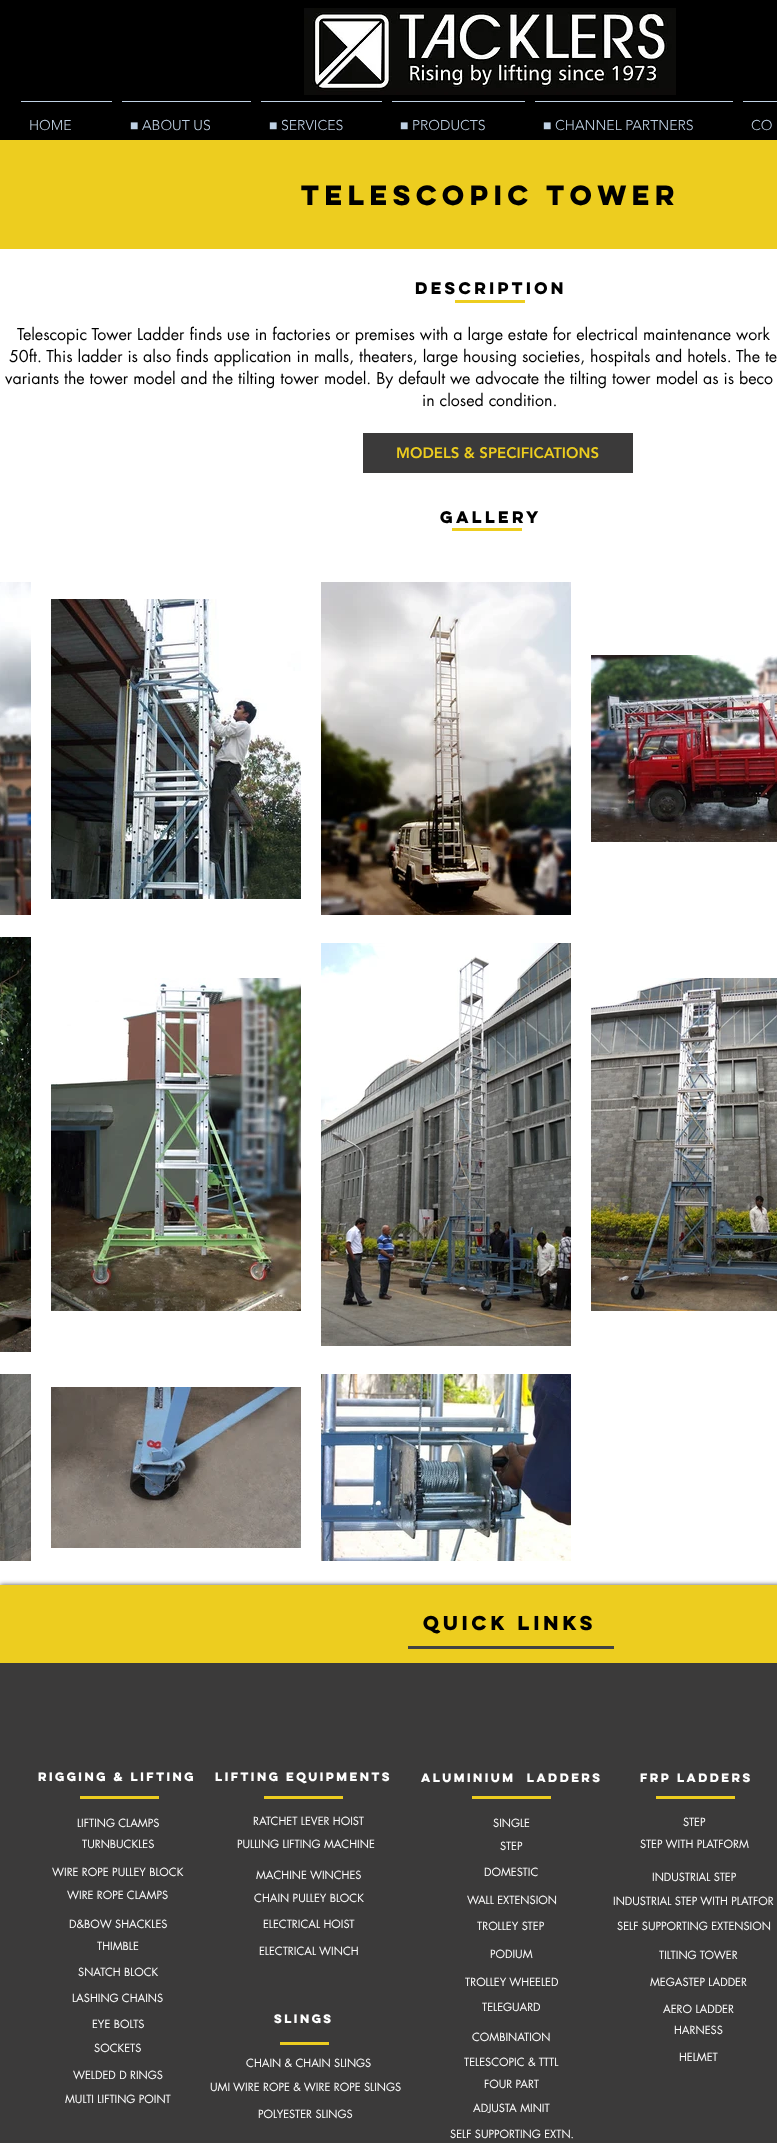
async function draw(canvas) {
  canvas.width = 777;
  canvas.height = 2143;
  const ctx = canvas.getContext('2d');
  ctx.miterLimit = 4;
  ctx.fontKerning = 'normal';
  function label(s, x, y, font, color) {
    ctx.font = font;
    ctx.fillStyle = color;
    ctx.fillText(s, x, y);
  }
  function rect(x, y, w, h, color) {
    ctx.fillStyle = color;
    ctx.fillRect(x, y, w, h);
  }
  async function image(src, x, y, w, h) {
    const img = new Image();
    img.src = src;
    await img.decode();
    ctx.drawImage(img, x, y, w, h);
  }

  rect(0, 0, 777, 2143, '#fff');
  rect(0, 0, 777, 140, '#000');
  await image('assets/img1.png', 304, 8, 372, 87);
  rect(21, 101, 91, 1, '#c0d2e5');
  label('HOME', 29, 130, '300 14px "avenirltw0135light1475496"', '#c0d2e5');
  rect(122, 101, 129, 1, '#c0d2e5');
  label('■', 130, 130, '14px Liberation Sans', '#c0d2e5');
  label('ABOUT US', 142, 130, '300 14px "avenirltw0135light1475496"', '#c0d2e5');
  rect(261, 101, 121, 1, '#c0d2e5');
  label('■', 269, 130, '14px Liberation Sans', '#c0d2e5');
  label('SERVICES', 281, 130, '300 14px "avenirltw0135light1475496"', '#c0d2e5');
  rect(392, 101, 133, 1, '#c0d2e5');
  label('■', 400, 130, '14px Liberation Sans', '#c0d2e5');
  label('PRODUCTS', 412, 130, '300 14px "avenirltw0135light1475496"', '#c0d2e5');
  rect(535, 101, 198, 1, '#c0d2e5');
  label('■', 543, 130, '14px Liberation Sans', '#c0d2e5');
  label('CHANNEL PARTNERS', 555, 130, '300 14px "avenirltw0135light1475496"', '#c0d2e5');
  rect(743, 101, 34, 1, '#c0d2e5');
  label('CO', 751, 130, '300 14px "avenirltw0135light1475496"', '#c0d2e5');
  rect(0, 140, 777, 109, '#edcd1f');
  label('telescopic tower', 301, 205, 'bold 25px "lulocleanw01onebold"', '#000');
  label('Description', 415, 294, 'bold 15px "lulocleanw01onebold"', '#000');
  rect(455, 300, 70, 3, '#edcd1f');
  label('Telescopic Tower Ladder finds use in factories or premises with a large estate for electrical maintenance work', 17, 340, '16px futura', '#000');
  label('50ft. This ladder is also finds application in malls, theaters, large housing societies, hospitals and hotels. The te', 9, 362, '16px futura', '#000');
  label('variants the tower model and the tilting tower model. By default we advocate the tilting tower model as is beco', 5, 384, '16px futura', '#000');
  label('in closed condition.', 422, 406, '16px futura', '#000');
  rect(363, 433, 270, 40, '#3b3a3a');
  label('MODELS & SPECIFICATIONS', 396, 458, '900 15px "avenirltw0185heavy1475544"', '#edcd1f');
  label('gallery', 440, 523, 'bold 15px "lulocleanw01onebold"', '#000');
  rect(452, 528, 70, 3, '#edcd1f');
  await image('assets/img2.png', 0, 582, 31, 333);
  await image('assets/img3.png', 51, 599, 250, 300);
  await image('assets/img4.png', 321, 582, 250, 333);
  await image('assets/img5.png', 591, 655, 186, 187);
  await image('assets/img6.png', 0, 937, 31, 415);
  await image('assets/img7.png', 51, 978, 250, 333);
  await image('assets/img8.png', 321, 943, 250, 403);
  await image('assets/img9.png', 591, 978, 186, 333);
  await image('assets/img10.png', 0, 1374, 31, 187);
  await image('assets/img11.png', 51, 1387, 250, 161);
  await image('assets/img12.png', 321, 1374, 250, 187);
  ctx.fillStyle = '#000000b3';
  ctx.filter = 'blur(2.5px)';
  ctx.beginPath();
  ctx.rect(0, 1585, 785, 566);
  ctx.fill();
  ctx.filter = 'none';
  rect(0, 1585, 777, 78, '#edcd1f');
  label('quick links', 423, 1630, 'bold 18px "lulocleanw01onebold"', '#000');
  rect(408, 1646, 206, 3, '#424242');
  rect(0, 1663, 777, 480, '#3b3a3a');
  label('RIGGING & LIFTING', 38, 1781, 'bold 11px "lulocleanw01onebold"', '#fff');
  label('LIFTING EQUIPMENTS', 215, 1781, 'bold 11px "lulocleanw01onebold"', '#fff');
  label('aluminium  ladders', 421, 1782, 'bold 11px "lulocleanw01onebold"', '#fff');
  label('frP ladders', 640, 1782, 'bold 11px "lulocleanw01onebold"', '#fff');
  rect(80, 1796, 79, 3, '#edcd1f');
  rect(264, 1796, 79, 3, '#edcd1f');
  rect(472, 1796, 79, 3, '#edcd1f');
  rect(656, 1796, 79, 3, '#edcd1f');
  label('LIFTING CLAMPS', 77, 1827, '11px futura', '#fff');
  label('RATCHET LEVER HOIST', 253, 1825, '11px futura', '#fff');
  label('SINGLE', 493, 1827, '11px futura', '#fff');
  label('STEP', 683, 1826, '11px futura', '#fff');
  label('TURNBUCKLES', 82, 1848, '11px futura', '#fff');
  label('PULLING LIFTING MACHINE', 237, 1848, '11px futura', '#fff');
  label('STEP', 500, 1850, '11px futura', '#fff');
  label('STEP WITH PLATFORM', 640, 1848, '11px futura', '#fff');
  label('WIRE ROPE PULLEY BLOCK', 52, 1876, '11px futura', '#fff');
  label('MACHINE WINCHES', 256, 1879, '11px futura', '#fff');
  label('DOMESTIC', 484, 1876, '11px futura', '#fff');
  label('INDUSTRIAL STEP', 652, 1881, '11px futura', '#fff');
  label('WIRE ROPE CLAMPS', 67, 1899, '11px futura', '#fff');
  label('CHAIN PULLEY BLOCK', 254, 1902, '11px futura', '#fff');
  label('WALL EXTENSION', 467, 1904, '11px futura', '#fff');
  label('INDUSTRIAL STEP WITH PLATFOR', 613, 1905, '11px futura', '#fff');
  label('D&BOW SHACKLES', 69, 1928, '11px futura', '#fff');
  label('ELECTRICAL HOIST', 263, 1928, '11px futura', '#fff');
  label('TROLLEY STEP', 477, 1930, '11px futura', '#fff');
  label('SELF SUPPORTING EXTENSION', 617, 1930, '11px futura', '#fff');
  label('THIMBLE', 97, 1950, '11px futura', '#fff');
  label('ELECTRICAL WINCH', 259, 1955, '11px futura', '#fff');
  label('PODIUM', 490, 1958, '11px futura', '#fff');
  label('TILTING TOWER', 659, 1959, '11px futura', '#fff');
  label('SNATCH BLOCK', 78, 1976, '11px futura', '#fff');
  label('TROLLEY WHEELED', 465, 1986, '11px futura', '#fff');
  label('MEGASTEP LADDER', 650, 1986, '11px futura', '#fff');
  label('LASHING CHAINS', 72, 2002, '11px futura', '#fff');
  label('TELEGUARD', 482, 2011, '11px futura', '#fff');
  label('AERO LADDER', 663, 2013, '11px futura', '#fff');
  label('EYE BOLTS', 92, 2028, '11px futura', '#fff');
  label('slings', 274, 2023, 'bold 11px "lulocleanw01onebold"', '#fff');
  label('HARNESS', 674, 2034, '11px futura', '#fff');
  label('COMBINATION', 472, 2041, '11px futura', '#fff');
  label('SOCKETS', 94, 2052, '11px futura', '#fff');
  rect(280, 2042, 49, 3, '#edcd1f');
  label('CHAIN & CHAIN SLINGS', 246, 2067, '11px futura', '#fff');
  label('TELESCOPIC & TTTL', 464, 2066, '11px futura', '#fff');
  label('HELMET', 679, 2061, '11px futura', '#fff');
  label('WELDED D RINGS', 73, 2079, '11px futura', '#fff');
  label('UMI WIRE ROPE & WIRE ROPE SLINGS', 210, 2091, '11px futura', '#fff');
  label('FOUR PART', 484, 2088, '11px futura', '#fff');
  label('MULTI LIFTING POINT', 65, 2103, '11px futura', '#fff');
  label('ADJUSTA MINIT', 473, 2112, '11px futura', '#fff');
  label('POLYESTER SLINGS', 258, 2118, '11px futura', '#fff');
  label('SELF SUPPORTING EXTN.', 450, 2138, '11px futura', '#fff');
}

draw(document.querySelector('canvas'));
